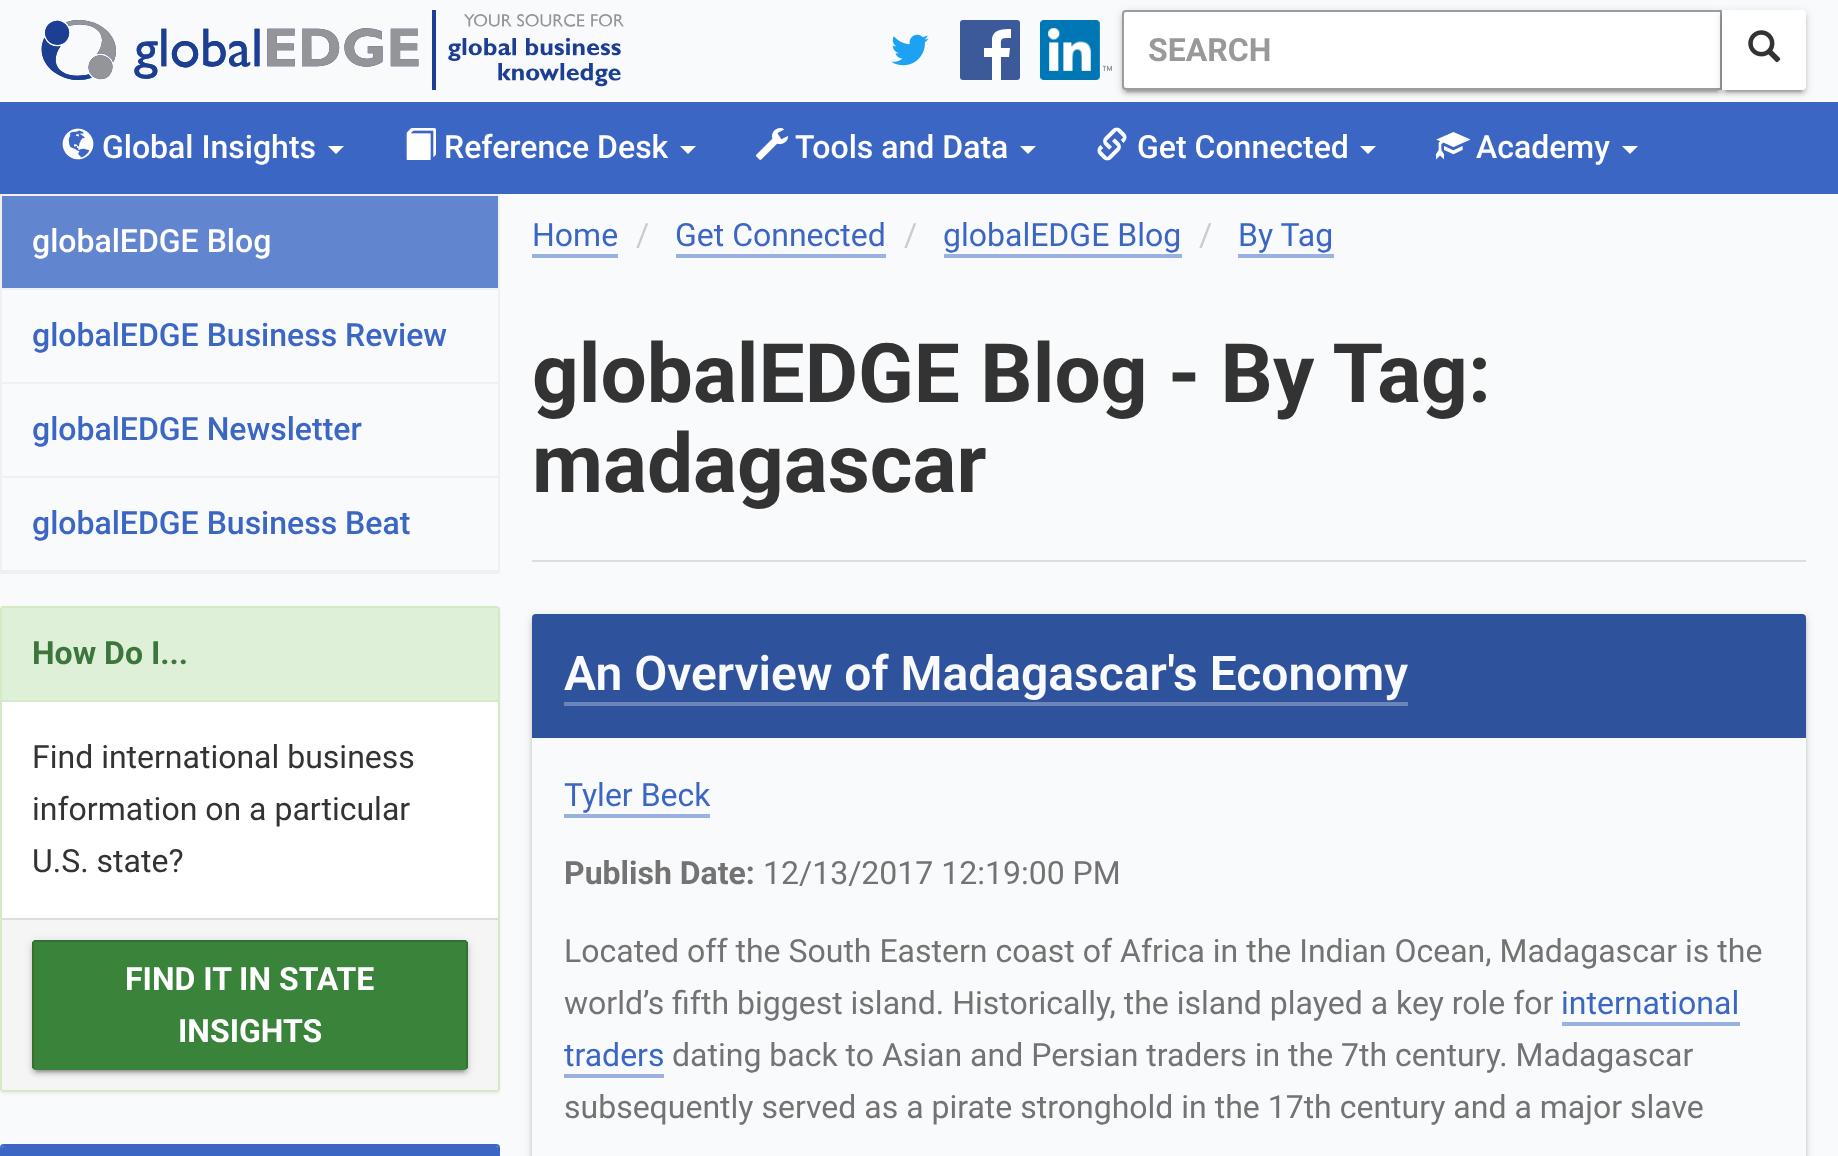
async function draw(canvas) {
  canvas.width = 1838;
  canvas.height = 1156;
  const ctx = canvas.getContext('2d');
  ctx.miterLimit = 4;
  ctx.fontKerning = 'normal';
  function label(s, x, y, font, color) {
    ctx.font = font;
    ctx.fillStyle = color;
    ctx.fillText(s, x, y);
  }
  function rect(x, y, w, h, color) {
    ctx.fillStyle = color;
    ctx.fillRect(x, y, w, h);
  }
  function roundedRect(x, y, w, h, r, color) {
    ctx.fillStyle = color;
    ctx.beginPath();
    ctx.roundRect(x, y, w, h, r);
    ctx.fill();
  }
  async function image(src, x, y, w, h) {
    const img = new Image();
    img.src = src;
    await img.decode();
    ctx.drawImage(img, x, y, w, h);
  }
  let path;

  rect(0, 0, 1838, 1156, '#f9fafb');
  await image('assets/img1.png', 41, 10, 583, 80);
  await image('assets/img2.png', 891, 34, 38, 32);
  roundedRect(960, 20, 60, 60, 3, '#3c5a99');
  ctx.fillStyle = '#fff';
  path = new Path2D('M1001 80V57H1009L1010 48H1001C1001 38 1000 38 1011 38V29C1003 29 994 29 992 38V48H984V57H992V80Z');
  ctx.fill(path);
  await image('assets/img3.png', 1040, 20, 72, 60);
  rect(0, 102, 1838, 92, '#3b66c4');
  ctx.fillStyle = '#0000001f';
  ctx.filter = 'blur(5px)';
  ctx.beginPath();
  ctx.roundRect(1122, 12, 600, 80, 4);
  ctx.fill();
  ctx.filter = 'none';
  ctx.fillStyle = '#00000033';
  ctx.filter = 'blur(1px)';
  ctx.beginPath();
  ctx.rect(1126, 20, 592, 72);
  ctx.fill();
  ctx.filter = 'none';
  ctx.fillStyle = '#00000024';
  ctx.filter = 'blur(2px)';
  ctx.beginPath();
  ctx.roundRect(1122, 14, 600, 80, 4);
  ctx.fill();
  ctx.filter = 'none';
  ctx.fillStyle = '#fff';
  ctx.beginPath();
  ctx.roundRect(1123, 11, 598, 78, [3, 0, 0, 3]);
  ctx.fill();
  ctx.strokeStyle = '#9c9c9c';
  ctx.lineWidth = 2;
  ctx.stroke();
  label('SEARCH', 1148, 61, 'bold 32px Roboto', '#999');
  ctx.fillStyle = '#0000001f';
  ctx.filter = 'blur(5px)';
  ctx.beginPath();
  ctx.roundRect(1722, 12, 84, 80, 4);
  ctx.fill();
  ctx.filter = 'none';
  ctx.fillStyle = '#00000033';
  ctx.filter = 'blur(1px)';
  ctx.beginPath();
  ctx.rect(1726, 20, 76, 72);
  ctx.fill();
  ctx.filter = 'none';
  ctx.fillStyle = '#00000024';
  ctx.filter = 'blur(2px)';
  ctx.beginPath();
  ctx.roundRect(1722, 14, 84, 80, 4);
  ctx.fill();
  ctx.filter = 'none';
  ctx.fillStyle = '#fff';
  ctx.beginPath();
  ctx.roundRect(1722, 10, 84, 80, [0, 4, 4, 0]);
  ctx.fill();
  await image('assets/img4.png', 1748, 30, 33, 33);
  await image('assets/img5.png', 62, 128, 32, 32);
  label('Global Insights', 102, 158, '500 32px Roboto', '#fff');
  path = new Path2D('M328 146H344L336 154Z');
  ctx.fill(path);
  await image('assets/img6.png', 406, 128, 30, 32);
  label('Reference Desk', 444, 158, '500 32px Roboto', '#fff');
  path = new Path2D('M680 146H696L688 154Z');
  ctx.fill(path);
  await image('assets/img7.png', 756, 128, 32, 32);
  label('Tools and Data', 795, 158, '500 32px Roboto', '#fff');
  path = new Path2D('M1020 146H1036L1028 154Z');
  ctx.fill(path);
  await image('assets/img8.png', 1097, 127, 30, 34);
  label('Get Connected', 1137, 158, '500 32px Roboto', '#fff');
  path = new Path2D('M1360 146H1376L1368 154Z');
  ctx.fill(path);
  await image('assets/img9.png', 1436, 132, 35, 28);
  label('Academy', 1476, 158, '500 32px Roboto', '#fff');
  path = new Path2D('M1622 146H1638L1630 154Z');
  ctx.fill(path);
  ctx.strokeStyle = '#f0f0f0';
  ctx.strokeRect(1, 195, 498, 378);
  rect(2, 196, 496, 92, '#6285d0');
  rect(2, 288, 496, 2, '#f0f0f0');
  label('globalEDGE Blog', 32, 252, '500 32px Roboto', '#fff');
  rect(2, 382, 496, 2, '#f0f0f0');
  label('globalEDGE Business Review', 32, 346, '500 32px Roboto', '#3b66c4');
  rect(2, 476, 496, 2, '#f0f0f0');
  label('globalEDGE Newsletter', 32, 440, '500 32px Roboto', '#3b66c4');
  rect(2, 570, 496, 2, '#f0f0f0');
  label('globalEDGE Business Beat', 32, 534, '500 32px Roboto', '#3b66c4');
  ctx.fillStyle = '#0000000d';
  ctx.filter = 'blur(1px)';
  ctx.beginPath();
  ctx.roundRect(0, 608, 500, 486, 4);
  ctx.fill();
  ctx.filter = 'none';
  ctx.fillStyle = '#fff';
  ctx.beginPath();
  ctx.roundRect(1, 607, 498, 484, 3);
  ctx.fill();
  ctx.strokeStyle = '#d6e9c6';
  ctx.stroke();
  ctx.fillStyle = '#dff0d8';
  ctx.beginPath();
  ctx.roundRect(2, 608, 496, 94, [2, 2, 0, 0]);
  ctx.fill();
  rect(2, 700, 496, 2, '#d6e9c6');
  label('How Do I...', 32, 664, 'bold 32px Roboto', '#3c763d');
  label('Find international business', 32, 768, '32px Roboto', '#333');
  label('information on a particular', 32, 820, '32px Roboto', '#333');
  label('U.S. state?', 32, 872, '32px Roboto', '#333');
  ctx.fillStyle = '#f5f5f5';
  ctx.beginPath();
  ctx.roundRect(2, 918, 496, 172, [0, 0, 2, 2]);
  ctx.fill();
  rect(2, 918, 496, 2, '#ddd');
  ctx.fillStyle = '#0000001f';
  ctx.filter = 'blur(5px)';
  ctx.beginPath();
  ctx.roundRect(32, 942, 436, 130, 4);
  ctx.fill();
  ctx.filter = 'none';
  ctx.fillStyle = '#00000033';
  ctx.filter = 'blur(1px)';
  ctx.beginPath();
  ctx.rect(36, 950, 428, 122);
  ctx.fill();
  ctx.filter = 'none';
  ctx.fillStyle = '#00000024';
  ctx.filter = 'blur(2px)';
  ctx.beginPath();
  ctx.roundRect(32, 944, 436, 130, 4);
  ctx.fill();
  ctx.filter = 'none';
  roundedRect(32, 940, 436, 130, 4, '#3a833a');
  rect(34, 940, 432, 2, '#327132');
  rect(466, 942, 2, 126, '#327132');
  rect(32, 942, 2, 126, '#327132');
  label('FIND IT IN STATE', 125, 990, 'bold 32px Roboto', '#fff');
  label('INSIGHTS', 178, 1042, 'bold 32px Roboto', '#fff');
  ctx.beginPath();
  ctx.roundRect(1, 1145, 498, 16, 3);
  ctx.strokeStyle = '#3b66c4';
  ctx.stroke();
  ctx.fillStyle = '#3b66c4';
  path = new Path2D('M4 1146H496C497 1146 498 1147 498 1148V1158H2V1148C2 1147 3 1146 4 1146Z');
  ctx.fill(path);
  label('Home', 532, 246, '32px Roboto', '#3b66c4');
  rect(532, 254, 86, 4, '#9ab0e0');
  label('/', 636, 246, '32px Roboto', '#ccc');
  label('Get Connected', 675, 246, '32px Roboto', '#3b66c4');
  rect(676, 254, 210, 4, '#9ab0e0');
  label('/', 904, 246, '32px Roboto', '#ccc');
  label('globalEDGE Blog', 943, 246, '32px Roboto', '#3b66c4');
  rect(944, 254, 238, 4, '#9ab0e0');
  label('/', 1199, 246, '32px Roboto', '#ccc');
  label('By Tag', 1238, 246, '32px Roboto', '#3b66c4');
  rect(1238, 254, 96, 4, '#9ab0e0');
  rect(532, 560, 1274, 2, '#ddd');
  label('globalEDGE Blog - By Tag:', 532, 402, 'bold 82px Roboto', '#333');
  label('madagascar', 532, 492, 'bold 82px Roboto', '#333');
  ctx.save();
  path = new Path2D('M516 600H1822V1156H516ZM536 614H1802C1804 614 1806 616 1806 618V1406C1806 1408 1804 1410 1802 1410H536C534 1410 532 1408 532 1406V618C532 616 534 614 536 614Z');
  ctx.clip(path, 'evenodd');
  ctx.fillStyle = '#0000001f';
  ctx.filter = 'blur(5px)';
  ctx.beginPath();
  ctx.roundRect(532, 616, 1274, 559, 4);
  ctx.fill();
  ctx.filter = 'none';
  ctx.restore();
  ctx.save();
  path = new Path2D('M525 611H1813V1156H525ZM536 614H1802C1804 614 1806 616 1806 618V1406C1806 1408 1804 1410 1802 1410H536C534 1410 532 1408 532 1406V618C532 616 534 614 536 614Z');
  ctx.clip(path, 'evenodd');
  ctx.fillStyle = '#00000024';
  ctx.filter = 'blur(2px)';
  ctx.beginPath();
  ctx.roundRect(532, 618, 1274, 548, 4);
  ctx.fill();
  ctx.filter = 'none';
  ctx.restore();
  ctx.fillStyle = '#2f529d';
  ctx.beginPath();
  ctx.roundRect(532, 614, 1274, 124, [4, 4, 0, 0]);
  ctx.fill();
  rect(564, 702, 844, 4, '#6c84b9');
  label('An Overview of Madagascar\'s Economy', 564, 690, '600 48px Roboto', '#f9fafb');
  label('Tyler Beck', 564, 806, '32px Roboto', '#3b66c4');
  rect(564, 814, 146, 4, '#9ab0e0');
  label('Publish Date:', 564, 884, 'bold 32px Roboto', '#737373');
  label('12/13/2017 12:19:00 PM', 763, 884, '32px Roboto', '#737373');
  label('Located off the South Eastern coast of Africa in the Indian Ocean, Madagascar is the', 564, 962, '32px Roboto', '#737373');
  label('world’s fifth biggest island. Historically, the island played a key role for', 564, 1014, '32px Roboto', '#737373');
  label('international', 1561, 1014, '32px Roboto', '#3b66c4');
  rect(1562, 1022, 178, 4, '#9ab0e0');
  label('traders', 564, 1066, '32px Roboto', '#3b66c4');
  rect(564, 1074, 100, 4, '#9ab0e0');
  label('dating back to Asian and Persian traders in the 7th century. Madagascar', 672, 1066, '32px Roboto', '#737373');
  label('subsequently served as a pirate stronghold in the 17th century and a major slave', 564, 1118, '32px Roboto', '#737373');
}

draw(document.querySelector('canvas'));
